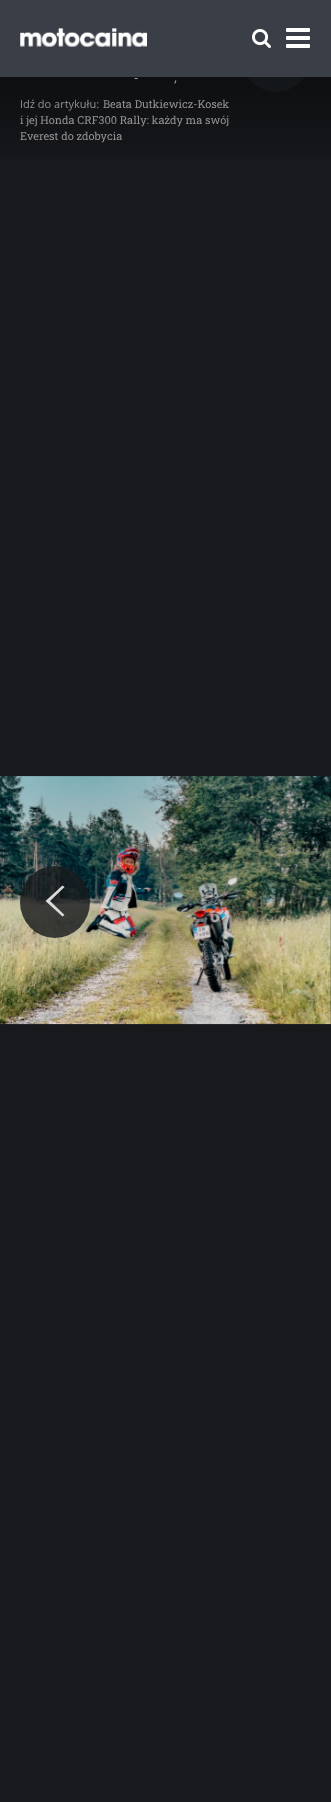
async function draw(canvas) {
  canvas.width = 331;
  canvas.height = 1802;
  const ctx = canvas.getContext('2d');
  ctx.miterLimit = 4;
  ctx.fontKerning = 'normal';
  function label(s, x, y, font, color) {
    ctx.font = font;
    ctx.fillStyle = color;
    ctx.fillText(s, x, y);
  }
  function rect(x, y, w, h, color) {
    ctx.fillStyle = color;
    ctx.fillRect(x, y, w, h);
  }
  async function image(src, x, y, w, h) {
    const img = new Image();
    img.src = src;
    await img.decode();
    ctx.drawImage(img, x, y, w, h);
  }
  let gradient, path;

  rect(0, 0, 331, 1802, '#17191d');
  gradient = ctx.createLinearGradient(166, 0, 166, 222);
  gradient.addColorStop(0, '#0a0b0d');
  gradient.addColorStop(0.11, '#08090a');
  gradient.addColorStop(0.8, '#17191d');
  ctx.fillStyle = gradient;
  ctx.fillRect(0, 77, 331, 80);
  ctx.fillStyle = '#17191ccc';
  ctx.beginPath();
  ctx.ellipse(276, 56, 35, 36, 0, 0, 2 * Math.PI);
  ctx.fill();
  rect(0, 0, 331, 77, '#3a3f47');
  await image('assets/img1.png', 20, 28, 127, 19);
  await image('assets/img2.png', 252, 29, 19, 19);
  await image('assets/img3.png', 286, 28, 24, 20);
  label('-', 134, 82, '13px Open Sans', '#a2a2a2');
  label(',', 174, 82, '13px Open Sans', '#a2a2a2');
  label('Idź do artykułu:', 20, 108, '11px Open Sans', '#949194');
  label('Beata Dutkiewicz-Kosek', 103, 108, '11px Roboto Slab', '#949194');
  label('i jej Honda CRF300 Rally: każdy ma swój', 20, 124, '11px Roboto Slab', '#949194');
  label('Everest do zdobycia', 20, 140, '11px Roboto Slab', '#949194');
  await image('assets/img4.png', 0, 776, 331, 249);
  ctx.fillStyle = '#17191ccc';
  ctx.beginPath();
  ctx.ellipse(55, 902, 35, 36, 0, 0, 2 * Math.PI);
  ctx.fill();
  ctx.fillStyle = '#dddadc';
  path = new Path2D('M64.5 887L50 901L64.5 915L62.5 916.5L45.5 901L62.5 885.5Z');
  ctx.fill(path, 'evenodd');
}

draw(document.querySelector('canvas'));
